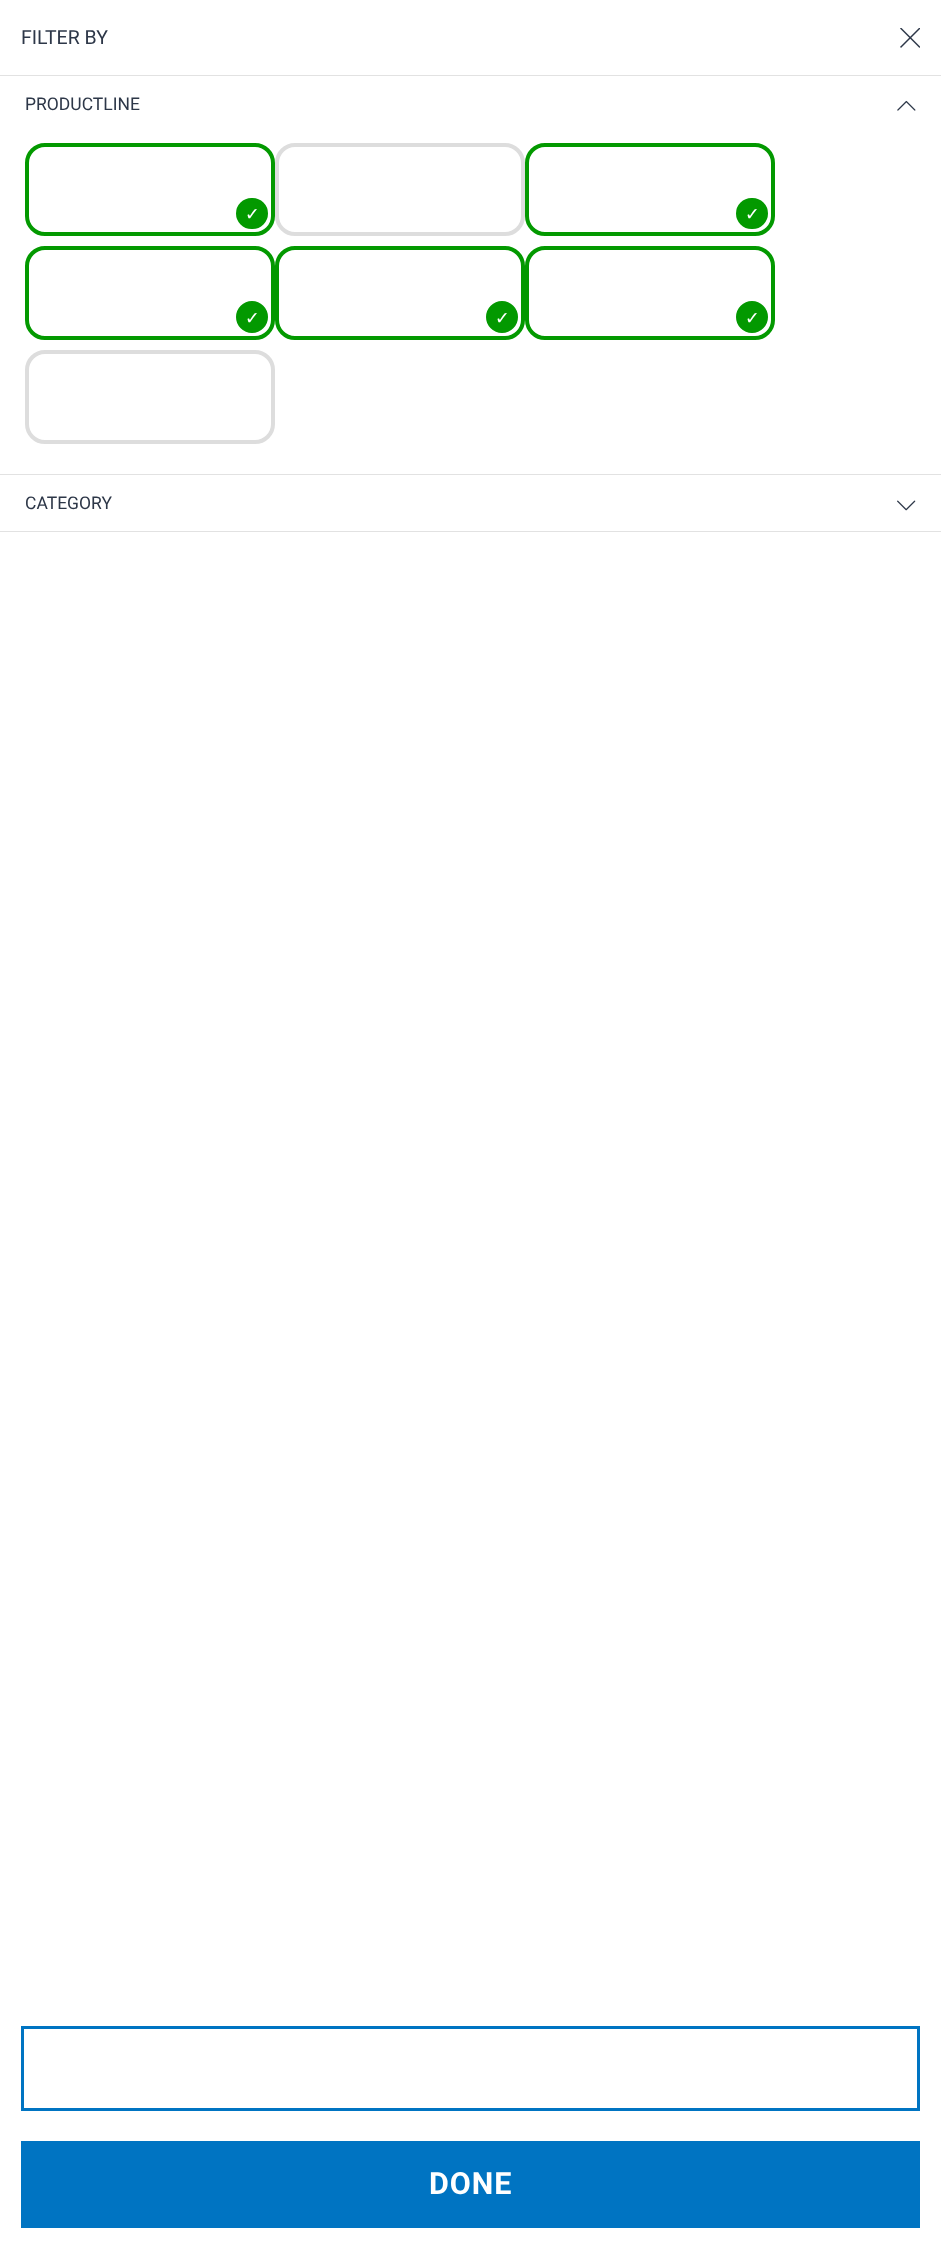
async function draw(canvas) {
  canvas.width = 941;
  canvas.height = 2264;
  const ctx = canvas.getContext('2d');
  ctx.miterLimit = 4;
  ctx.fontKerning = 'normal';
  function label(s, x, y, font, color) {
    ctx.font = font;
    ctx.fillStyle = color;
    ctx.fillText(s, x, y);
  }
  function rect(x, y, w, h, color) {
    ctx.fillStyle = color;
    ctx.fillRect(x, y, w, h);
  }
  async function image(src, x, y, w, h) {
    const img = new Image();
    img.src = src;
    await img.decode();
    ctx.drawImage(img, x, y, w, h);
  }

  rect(0, 0, 941, 2264, '#fff');
  label('FILTER BY', 21, 44, '19.5px Roboto', '#2d3748');
  await image('assets/img1.png', 900, 28, 20, 20);
  rect(0, 75, 941, 1, '#e2e2e2');
  label('PRODUCTLINE', 25, 110, '17.5px Roboto', '#2d3748');
  await image('assets/img2.png', 897, 100, 19, 11);
  ctx.beginPath();
  ctx.roundRect(27, 145, 246, 89, 18);
  ctx.strokeStyle = '#039900';
  ctx.lineWidth = 4;
  ctx.stroke();
  ctx.fillStyle = '#039900';
  ctx.beginPath();
  ctx.roundRect(238, 200, 28, 27, 13.5);
  ctx.fill();
  ctx.stroke();
  label('✓', 245, 220, '17.5px DejaVu Sans', '#fff');
  ctx.beginPath();
  ctx.roundRect(277, 145, 246, 89, 18);
  ctx.strokeStyle = '#ddd';
  ctx.stroke();
  ctx.beginPath();
  ctx.roundRect(527, 145, 246, 89, 18);
  ctx.strokeStyle = '#039900';
  ctx.stroke();
  ctx.fillStyle = '#039900';
  ctx.beginPath();
  ctx.roundRect(738, 200, 28, 27, 13.5);
  ctx.fill();
  ctx.stroke();
  label('✓', 745, 220, '17.5px DejaVu Sans', '#fff');
  ctx.beginPath();
  ctx.roundRect(27, 248, 246, 90, 18);
  ctx.stroke();
  ctx.fillStyle = '#039900';
  ctx.beginPath();
  ctx.arc(252, 317, 14, 0, 2 * Math.PI);
  ctx.fill();
  ctx.stroke();
  label('✓', 245, 324, '17.5px DejaVu Sans', '#fff');
  ctx.beginPath();
  ctx.roundRect(277, 248, 246, 90, 18);
  ctx.stroke();
  ctx.fillStyle = '#039900';
  ctx.beginPath();
  ctx.arc(502, 317, 14, 0, 2 * Math.PI);
  ctx.fill();
  ctx.stroke();
  label('✓', 495, 324, '17.5px DejaVu Sans', '#fff');
  ctx.beginPath();
  ctx.roundRect(527, 248, 246, 90, 18);
  ctx.stroke();
  ctx.fillStyle = '#039900';
  ctx.beginPath();
  ctx.arc(752, 317, 14, 0, 2 * Math.PI);
  ctx.fill();
  ctx.stroke();
  label('✓', 745, 324, '17.5px DejaVu Sans', '#fff');
  ctx.beginPath();
  ctx.roundRect(27, 352, 246, 90, 18);
  ctx.strokeStyle = '#ddd';
  ctx.stroke();
  rect(0, 474, 941, 1, '#e2e2e2');
  rect(0, 531, 941, 1, '#e2e2e2');
  label('CATEGORY', 25, 509, '17.5px Roboto', '#2d3748');
  await image('assets/img3.png', 897, 500, 19, 11);
  ctx.strokeStyle = '#0074c2';
  ctx.lineWidth = 3;
  ctx.strokeRect(22.5, 2027.5, 896, 82);
  rect(21, 2141, 899, 87, '#0074c2');
  ctx.letterSpacing = '1px';
  label('DONE', 429, 2194, 'bold 30.5px Roboto', '#fff');
}

draw(document.querySelector('canvas'));
